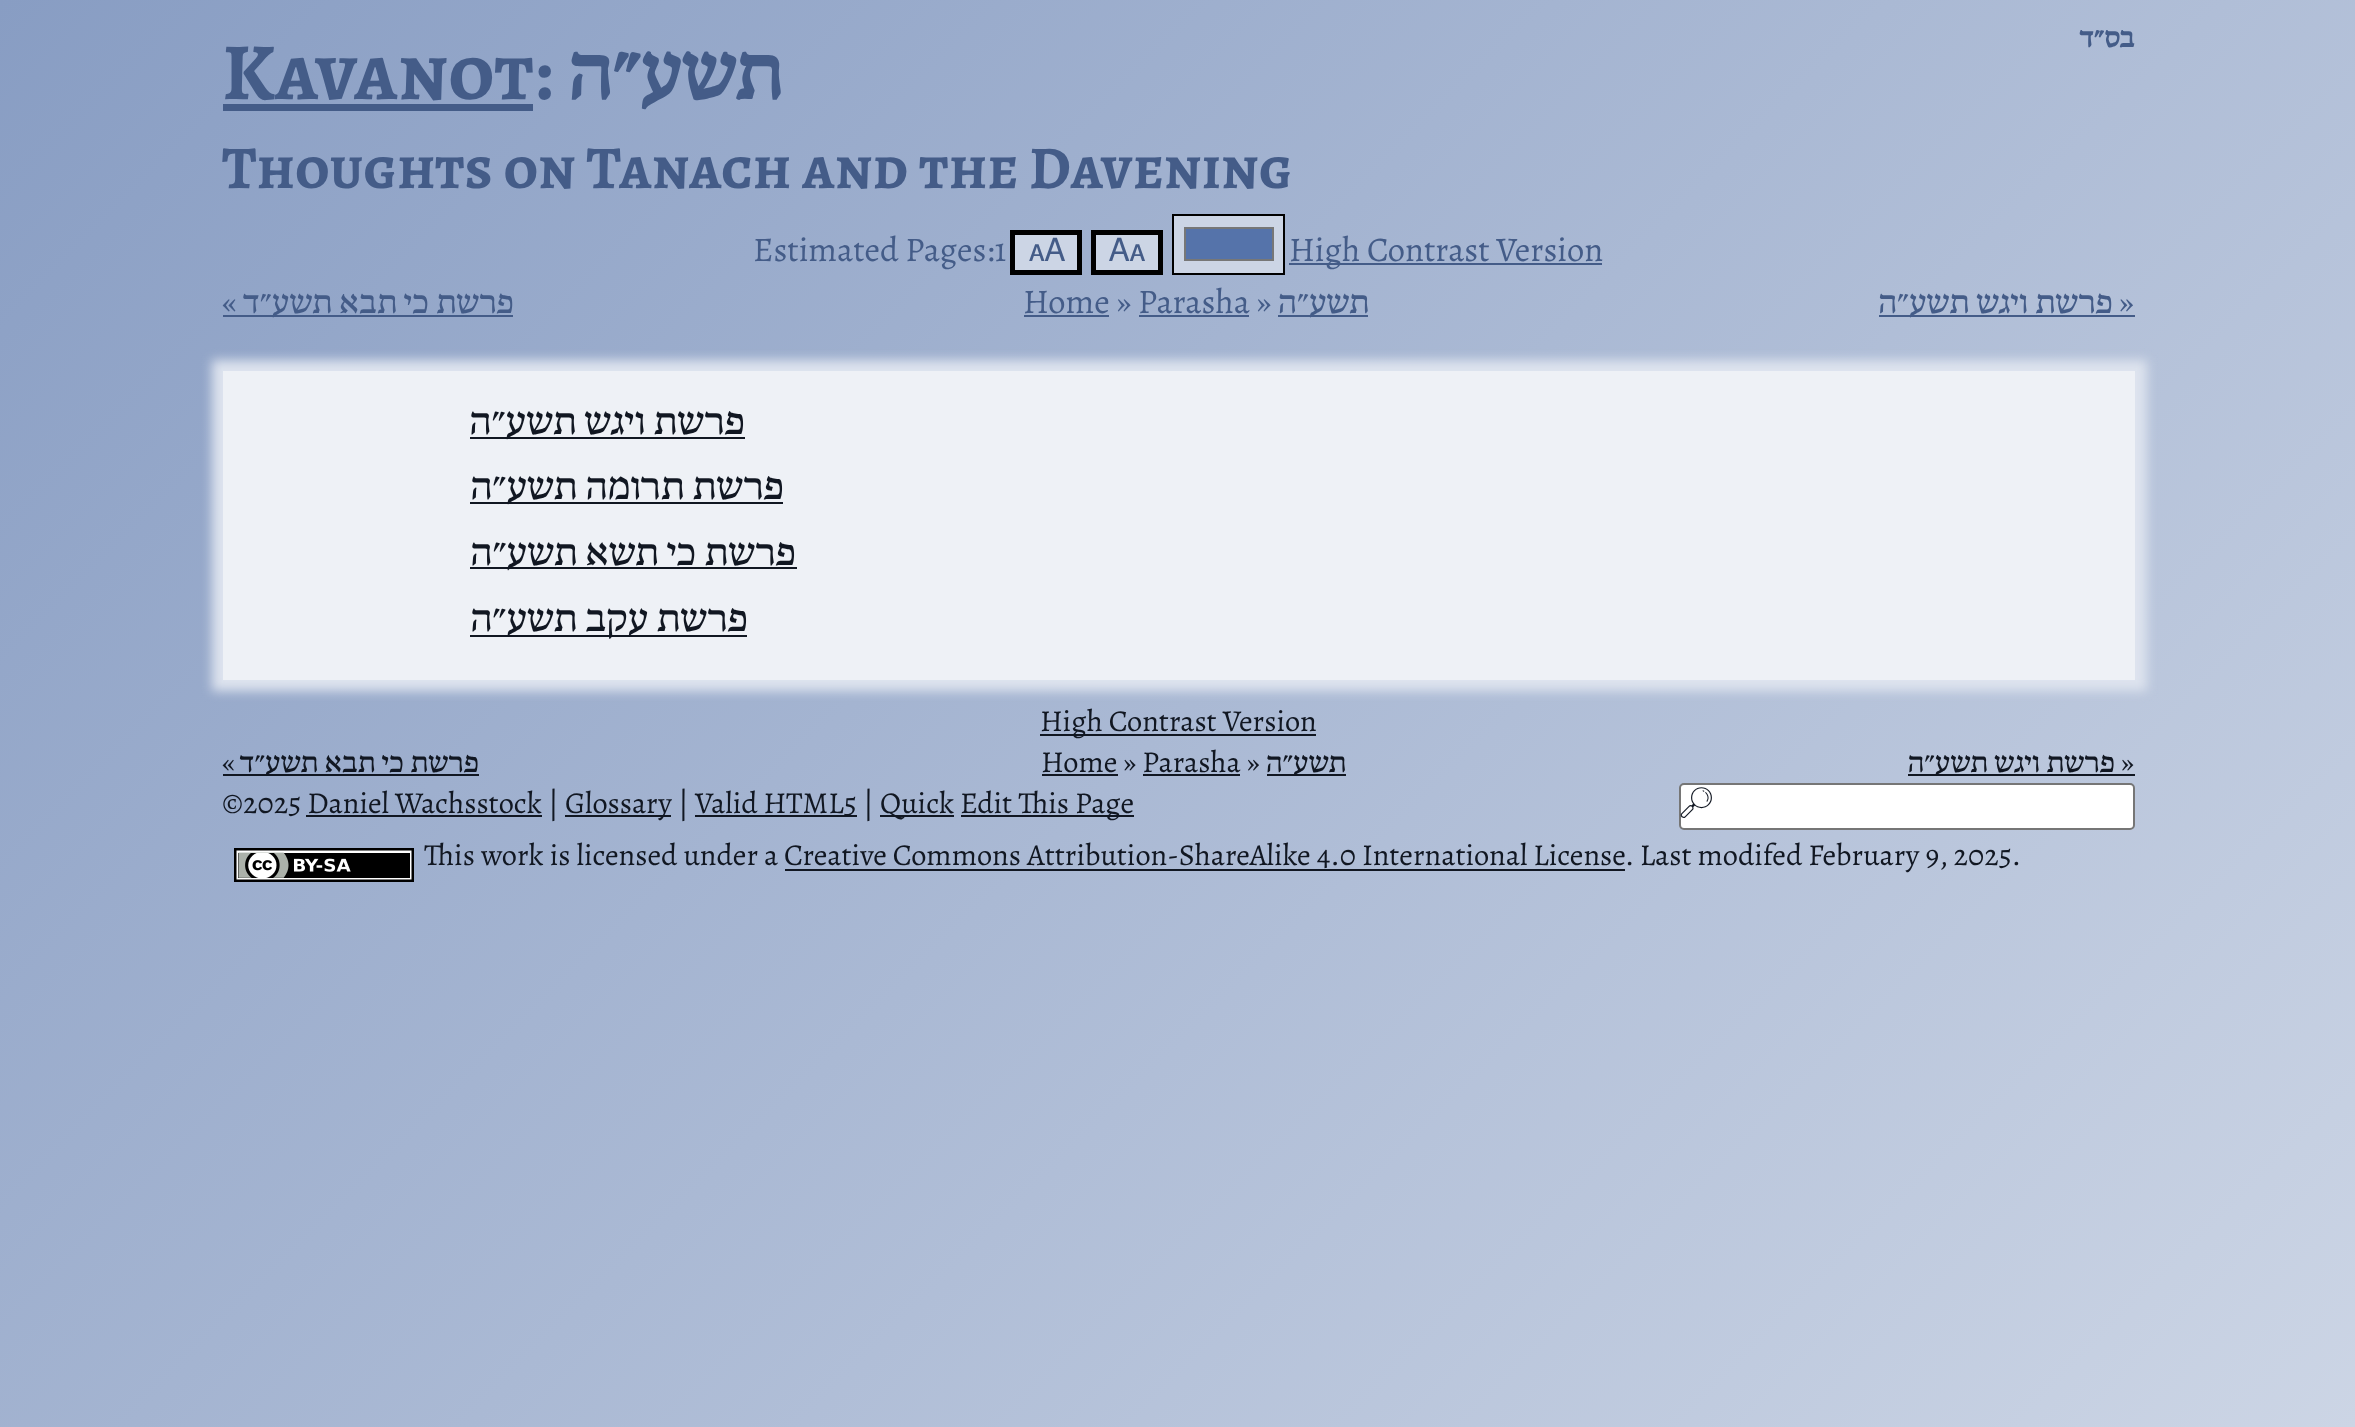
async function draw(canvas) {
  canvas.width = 2355;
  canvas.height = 1427;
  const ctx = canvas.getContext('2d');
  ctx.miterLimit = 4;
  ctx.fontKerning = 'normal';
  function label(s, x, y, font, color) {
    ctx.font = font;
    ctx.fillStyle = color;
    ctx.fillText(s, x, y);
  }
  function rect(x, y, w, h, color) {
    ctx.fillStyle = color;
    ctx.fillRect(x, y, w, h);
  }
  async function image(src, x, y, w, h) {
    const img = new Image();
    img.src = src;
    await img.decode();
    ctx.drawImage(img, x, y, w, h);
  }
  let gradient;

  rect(0, 0, 2355, 1427, '#fff');
  gradient = ctx.createLinearGradient(232, -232, 2124, 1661);
  gradient.addColorStop(0, '#889dc3');
  gradient.addColorStop(1, '#ccd5e5');
  ctx.fillStyle = gradient;
  ctx.fillRect(0, 0, 2355, 1427);
  ctx.direction = 'rtl';
  label('בס״ד', 2134, 47, 'bold 29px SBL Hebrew', '#445c88');
  ctx.direction = 'ltr';
  label('Kavanot:', 222, 99, 'bold 81px Alegreya SC', '#445c88');
  rect(223, 104, 310, 7, '#445c88');
  ctx.direction = 'rtl';
  label('תשע״ה', 781, 99, 'bold 81px SBL Hebrew', '#445c88');
  ctx.direction = 'ltr';
  label('Thoughts on Tanach and the Davening', 222, 188, 'bold 60.75px Alegreya SC', '#445c88');
  label('Estimated Pages:1', 753, 261, '34.5px Alegreya', '#445c88');
  ctx.fillStyle = '#ccd5e5';
  ctx.beginPath();
  ctx.rect(1012.5, 232.5, 67, 40);
  ctx.fill();
  ctx.strokeStyle = '#000';
  ctx.lineWidth = 5;
  ctx.stroke();
  label('🗚', 1029, 261, '32px FreeSans', '#445c88');
  ctx.fillStyle = '#ccd5e5';
  ctx.beginPath();
  ctx.rect(1093.5, 232.5, 67, 40);
  ctx.fill();
  ctx.stroke();
  label('🗛', 1109, 261, '32px FreeSans', '#445c88');
  ctx.fillStyle = '#ccd5e5';
  ctx.beginPath();
  ctx.rect(1173, 215, 111, 59);
  ctx.fill();
  ctx.lineWidth = 2;
  ctx.stroke();
  ctx.fillStyle = '#5573aa';
  ctx.beginPath();
  ctx.rect(1185, 228, 88, 32);
  ctx.fill();
  ctx.strokeStyle = '#777';
  ctx.stroke();
  rect(1289, 263, 313, 2, '#445c88');
  label('High Contrast Version', 1289, 261, '34.5px Alegreya', '#445c88');
  label('«', 222, 313, '34.5px Alegreya', '#445c88');
  rect(223, 315, 290, 2, '#445c88');
  ctx.wordSpacing = '-2.5px';
  ctx.direction = 'rtl';
  label('פרשת כי תבא תשע״ד', 514, 313, '34.5px SBL Hebrew', '#445c88');
  ctx.wordSpacing = '0px';
  ctx.direction = 'ltr';
  label('Home » Parasha »', 1023, 313, '34.5px Alegreya', '#445c88');
  rect(1024, 315, 85, 2, '#445c88');
  rect(1278, 315, 90, 2, '#445c88');
  ctx.direction = 'rtl';
  label('תשע״ה', 1369, 313, '34.5px SBL Hebrew', '#445c88');
  rect(1139, 315, 110, 2, '#445c88');
  rect(1879, 315, 234, 2, '#445c88');
  ctx.wordSpacing = '-2.5px';
  label('פרשת ויגש תשע״ה', 2113, 313, '34.5px SBL Hebrew', '#445c88');
  ctx.wordSpacing = '0px';
  ctx.direction = 'ltr';
  label('»', 2119, 313, '34.5px Alegreya', '#445c88');
  rect(2113, 315, 22, 2, '#445c88');
  ctx.fillStyle = '#dde3ee';
  ctx.filter = 'blur(5.5px)';
  ctx.beginPath();
  ctx.rect(212, 360, 1935, 331);
  ctx.fill();
  ctx.filter = 'none';
  rect(223, 371, 1912, 309, '#eef1f6');
  rect(470, 437, 275, 2, '#111722');
  ctx.wordSpacing = '-3px';
  ctx.direction = 'rtl';
  label('פרשת ויגש תשע״ה', 745, 434, '40.5px SBL Hebrew', '#111722');
  rect(470, 502, 313, 2, '#111722');
  label('פרשת תרומה תשע״ה', 784, 499, '40.5px SBL Hebrew', '#111722');
  rect(470, 567, 327, 2, '#111722');
  label('פרשת כי תשא תשע״ה', 796, 565, '40.5px SBL Hebrew', '#111722');
  rect(470, 635, 277, 2, '#111722');
  label('פרשת עקב תשע״ה', 748, 631, '40.5px SBL Hebrew', '#111722');
  rect(1040, 734, 276, 2, '#111722');
  ctx.wordSpacing = '0px';
  ctx.direction = 'ltr';
  label('High Contrast Version', 1040, 731, '30.4px Alegreya', '#111722');
  label('«', 222, 772, '30.4px Alegreya', '#111722');
  rect(223, 774, 256, 2, '#111722');
  ctx.wordSpacing = '-2px';
  ctx.direction = 'rtl';
  label('פרשת כי תבא תשע״ד', 479, 772, '30.4px SBL Hebrew', '#111722');
  ctx.wordSpacing = '0px';
  ctx.direction = 'ltr';
  label('Home » Parasha »', 1041, 772, '30.4px Alegreya', '#111722');
  rect(1042, 774, 76, 2, '#111722');
  rect(1267, 774, 79, 2, '#111722');
  ctx.direction = 'rtl';
  label('תשע״ה', 1346, 772, '30.4px SBL Hebrew', '#111722');
  rect(1143, 774, 97, 2, '#111722');
  rect(1908, 774, 207, 2, '#111722');
  ctx.wordSpacing = '-2px';
  label('פרשת ויגש תשע״ה', 2115, 772, '30.4px SBL Hebrew', '#111722');
  ctx.wordSpacing = '0px';
  ctx.direction = 'ltr';
  label('»', 2121, 772, '30.4px Alegreya', '#111722');
  rect(2115, 774, 20, 2, '#111722');
  label('©2025 Daniel Wachsstock |', 222, 813, '30.4px Alegreya', '#111722');
  rect(565, 815, 106, 2, '#111722');
  label('Glossary |', 565, 813, '30.4px Alegreya', '#111722');
  rect(695, 815, 162, 2, '#111722');
  label('Valid HTML5 |', 695, 813, '30.4px Alegreya', '#111722');
  rect(880, 815, 74, 2, '#111722');
  label('Quick', 880, 813, '30.4px Alegreya', '#111722');
  rect(961, 815, 173, 2, '#111722');
  label('Edit This Page', 960, 813, '30.4px Alegreya', '#111722');
  rect(306, 815, 236, 2, '#111722');
  ctx.fillStyle = '#fff';
  ctx.beginPath();
  ctx.roundRect(1680, 784, 454, 45, 4);
  ctx.fill();
  ctx.strokeStyle = '#767676';
  ctx.stroke();
  label('🔎', 1677, 813, '30.4px Noto Emoji', '#111722');
  await image('assets/img1.png', 234, 848, 180, 34);
  label('This work is licensed under a', 424, 865, '30.4px Alegreya', '#111722');
  label('Creative Commons Attribution-ShareAlike 4.0 International License', 784, 865, '30.4px Alegreya', '#111722');
  rect(785, 869, 840, 2, '#111722');
  label('. Last modifed February 9, 2025.', 1625, 865, '30.4px Alegreya', '#111722');
}

draw(document.querySelector('canvas'));
